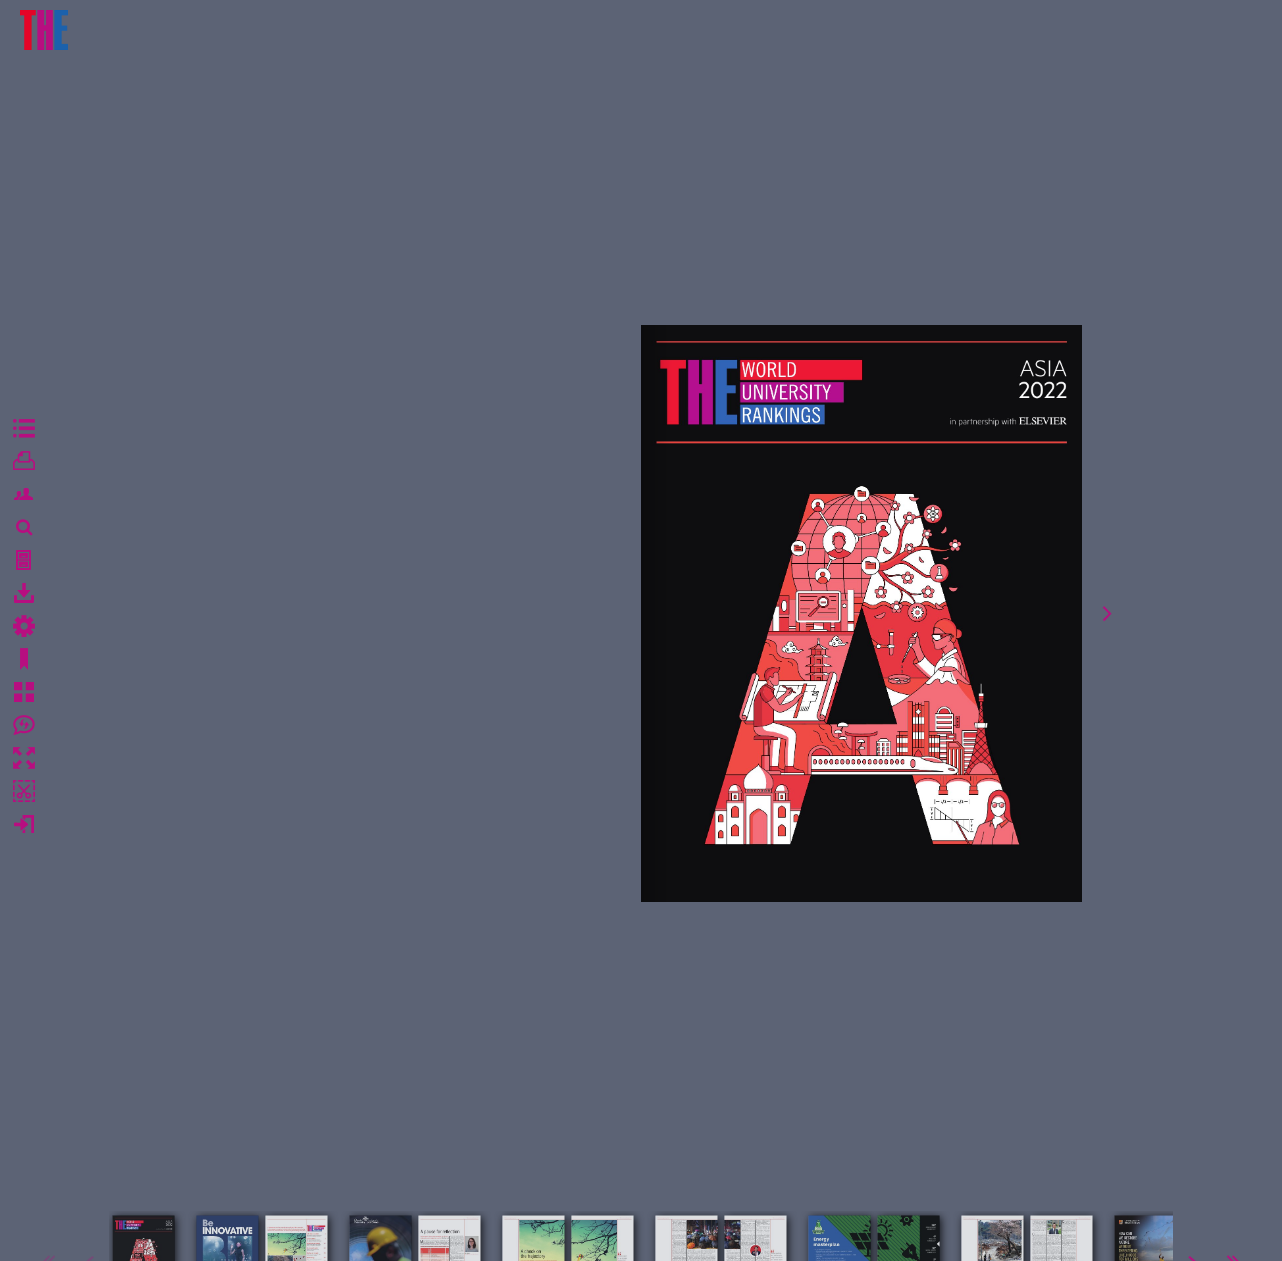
async function draw(canvas) {
  canvas.width = 1282;
  canvas.height = 1261;
  const ctx = canvas.getContext('2d');
  ctx.miterLimit = 4;
  ctx.fontKerning = 'normal';
  function rect(x, y, w, h, color) {
    ctx.fillStyle = color;
    ctx.fillRect(x, y, w, h);
  }
  async function image(src, x, y, w, h) {
    const img = new Image();
    img.src = src;
    await img.decode();
    ctx.drawImage(img, x, y, w, h);
  }
  let path;

  rect(0, 0, 1282, 1261, '#5c6375');
  await image('assets/img1.png', 20, 10, 48, 40);
  await image('assets/img2.png', 13, 419, 22, 19);
  await image('assets/img3.png', 13, 451, 22, 19);
  await image('assets/img4.png', 14, 488, 19, 12);
  await image('assets/img5.png', 16, 519, 17, 17);
  await image('assets/img6.png', 16, 550, 15, 20);
  await image('assets/img7.png', 14, 583, 20, 20);
  await image('assets/img8.png', 13, 615, 22, 22);
  await image('assets/img9.png', 20, 648, 8, 22);
  await image('assets/img10.png', 14, 682, 20, 20);
  await image('assets/img11.png', 13, 715, 22, 20);
  await image('assets/img12.png', 13, 747, 22, 22);
  await image('assets/img13.png', 13, 780, 22, 22);
  await image('assets/img14.png', 14, 815, 20, 18);
  await image('assets/img15.png', 641, 325, 441, 577);
  await image('assets/img16.png', 1102, 606, 10, 16);
  ctx.save();
  ctx.beginPath();
  ctx.rect(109, 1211, 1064, 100);
  ctx.clip();
  path = new Path2D('M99 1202H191V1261H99ZM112 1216H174V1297H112Z');
  ctx.clip(path, 'evenodd');
  ctx.fillStyle = '#131418';
  ctx.filter = 'blur(4.5px)';
  ctx.beginPath();
  ctx.rect(114, 1217, 62, 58);
  ctx.fill();
  ctx.filter = 'none';
  ctx.restore();
  await image('assets/img17.png', 112, 1215, 63, 46);
  ctx.save();
  ctx.beginPath();
  ctx.rect(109, 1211, 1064, 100);
  ctx.clip();
  path = new Path2D('M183 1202H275V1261H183ZM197 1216H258V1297H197Z');
  ctx.clip(path, 'evenodd');
  ctx.fillStyle = '#131418';
  ctx.filter = 'blur(4.5px)';
  ctx.beginPath();
  ctx.rect(198, 1217, 62, 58);
  ctx.fill();
  ctx.filter = 'none';
  ctx.restore();
  await image('assets/img18.png', 196, 1215, 63, 46);
  ctx.save();
  ctx.beginPath();
  ctx.rect(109, 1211, 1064, 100);
  ctx.clip();
  path = new Path2D('M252 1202H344V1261H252ZM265 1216H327V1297H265Z');
  ctx.clip(path, 'evenodd');
  ctx.fillStyle = '#000000cc';
  ctx.filter = 'blur(4.5px)';
  ctx.beginPath();
  ctx.rect(267, 1217, 62, 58);
  ctx.fill();
  ctx.filter = 'none';
  ctx.restore();
  await image('assets/img19.png', 265, 1215, 63, 46);
  ctx.save();
  ctx.beginPath();
  ctx.rect(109, 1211, 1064, 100);
  ctx.clip();
  path = new Path2D('M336 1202H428V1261H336ZM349 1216H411V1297H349Z');
  ctx.clip(path, 'evenodd');
  ctx.fillStyle = '#131418';
  ctx.filter = 'blur(4.5px)';
  ctx.beginPath();
  ctx.rect(351, 1217, 62, 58);
  ctx.fill();
  ctx.filter = 'none';
  ctx.restore();
  await image('assets/img20.png', 349, 1215, 63, 46);
  ctx.save();
  ctx.beginPath();
  ctx.rect(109, 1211, 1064, 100);
  ctx.clip();
  path = new Path2D('M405 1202H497V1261H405ZM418 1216H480V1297H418Z');
  ctx.clip(path, 'evenodd');
  ctx.fillStyle = '#000000cc';
  ctx.filter = 'blur(4.5px)';
  ctx.beginPath();
  ctx.rect(420, 1217, 62, 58);
  ctx.fill();
  ctx.filter = 'none';
  ctx.restore();
  await image('assets/img21.png', 418, 1215, 63, 46);
  ctx.save();
  ctx.beginPath();
  ctx.rect(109, 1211, 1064, 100);
  ctx.clip();
  path = new Path2D('M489 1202H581V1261H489ZM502 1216H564V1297H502Z');
  ctx.clip(path, 'evenodd');
  ctx.fillStyle = '#131418';
  ctx.filter = 'blur(4.5px)';
  ctx.beginPath();
  ctx.rect(504, 1217, 62, 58);
  ctx.fill();
  ctx.filter = 'none';
  ctx.restore();
  await image('assets/img22.png', 502, 1215, 63, 46);
  ctx.save();
  ctx.beginPath();
  ctx.rect(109, 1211, 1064, 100);
  ctx.clip();
  path = new Path2D('M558 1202H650V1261H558ZM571 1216H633V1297H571Z');
  ctx.clip(path, 'evenodd');
  ctx.fillStyle = '#000000cc';
  ctx.filter = 'blur(4.5px)';
  ctx.beginPath();
  ctx.rect(573, 1217, 62, 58);
  ctx.fill();
  ctx.filter = 'none';
  ctx.restore();
  await image('assets/img23.png', 571, 1215, 63, 46);
  ctx.save();
  ctx.beginPath();
  ctx.rect(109, 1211, 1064, 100);
  ctx.clip();
  path = new Path2D('M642 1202H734V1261H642ZM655 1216H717V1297H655Z');
  ctx.clip(path, 'evenodd');
  ctx.fillStyle = '#131418';
  ctx.filter = 'blur(4.5px)';
  ctx.beginPath();
  ctx.rect(657, 1217, 62, 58);
  ctx.fill();
  ctx.filter = 'none';
  ctx.restore();
  await image('assets/img24.png', 655, 1215, 63, 46);
  ctx.save();
  ctx.beginPath();
  ctx.rect(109, 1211, 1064, 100);
  ctx.clip();
  path = new Path2D('M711 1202H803V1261H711ZM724 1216H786V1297H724Z');
  ctx.clip(path, 'evenodd');
  ctx.fillStyle = '#000000cc';
  ctx.filter = 'blur(4.5px)';
  ctx.beginPath();
  ctx.rect(726, 1217, 62, 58);
  ctx.fill();
  ctx.filter = 'none';
  ctx.restore();
  await image('assets/img25.png', 724, 1215, 63, 46);
  ctx.save();
  ctx.beginPath();
  ctx.rect(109, 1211, 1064, 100);
  ctx.clip();
  path = new Path2D('M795 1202H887V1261H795ZM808 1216H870V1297H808Z');
  ctx.clip(path, 'evenodd');
  ctx.fillStyle = '#131418';
  ctx.filter = 'blur(4.5px)';
  ctx.beginPath();
  ctx.rect(810, 1217, 62, 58);
  ctx.fill();
  ctx.filter = 'none';
  ctx.restore();
  await image('assets/img26.png', 808, 1215, 63, 46);
  ctx.save();
  ctx.beginPath();
  ctx.rect(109, 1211, 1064, 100);
  ctx.clip();
  path = new Path2D('M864 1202H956V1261H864ZM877 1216H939V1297H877Z');
  ctx.clip(path, 'evenodd');
  ctx.fillStyle = '#000000cc';
  ctx.filter = 'blur(4.5px)';
  ctx.beginPath();
  ctx.rect(879, 1217, 62, 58);
  ctx.fill();
  ctx.filter = 'none';
  ctx.restore();
  await image('assets/img27.png', 877, 1215, 63, 46);
  ctx.save();
  ctx.beginPath();
  ctx.rect(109, 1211, 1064, 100);
  ctx.clip();
  path = new Path2D('M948 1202H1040V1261H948ZM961 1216H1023V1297H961Z');
  ctx.clip(path, 'evenodd');
  ctx.fillStyle = '#131418';
  ctx.filter = 'blur(4.5px)';
  ctx.beginPath();
  ctx.rect(963, 1217, 62, 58);
  ctx.fill();
  ctx.filter = 'none';
  ctx.restore();
  await image('assets/img28.png', 961, 1215, 63, 46);
  ctx.save();
  ctx.beginPath();
  ctx.rect(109, 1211, 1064, 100);
  ctx.clip();
  path = new Path2D('M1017 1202H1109V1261H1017ZM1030 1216H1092V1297H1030Z');
  ctx.clip(path, 'evenodd');
  ctx.fillStyle = '#000000cc';
  ctx.filter = 'blur(4.5px)';
  ctx.beginPath();
  ctx.rect(1032, 1217, 62, 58);
  ctx.fill();
  ctx.filter = 'none';
  ctx.restore();
  await image('assets/img29.png', 1030, 1215, 63, 46);
  await image('assets/img33.png', 1188, 1256, 8, 5);
  ctx.save();
  ctx.beginPath();
  ctx.rect(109, 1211, 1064, 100);
  ctx.clip();
  path = new Path2D('M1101 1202H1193V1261H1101ZM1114 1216H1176V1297H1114Z');
  ctx.clip(path, 'evenodd');
  ctx.fillStyle = '#131418';
  ctx.filter = 'blur(4.5px)';
  ctx.beginPath();
  ctx.rect(1116, 1217, 62, 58);
  ctx.fill();
  ctx.filter = 'none';
  ctx.restore();
  await image('assets/img30.png', 1114, 1215, 59, 46);
  await image('assets/img31.png', 43, 1255, 12, 6);
  await image('assets/img32.png', 86, 1256, 8, 5);
  await image('assets/img34.png', 1226, 1255, 13, 6);
}

draw(document.querySelector('canvas'));
